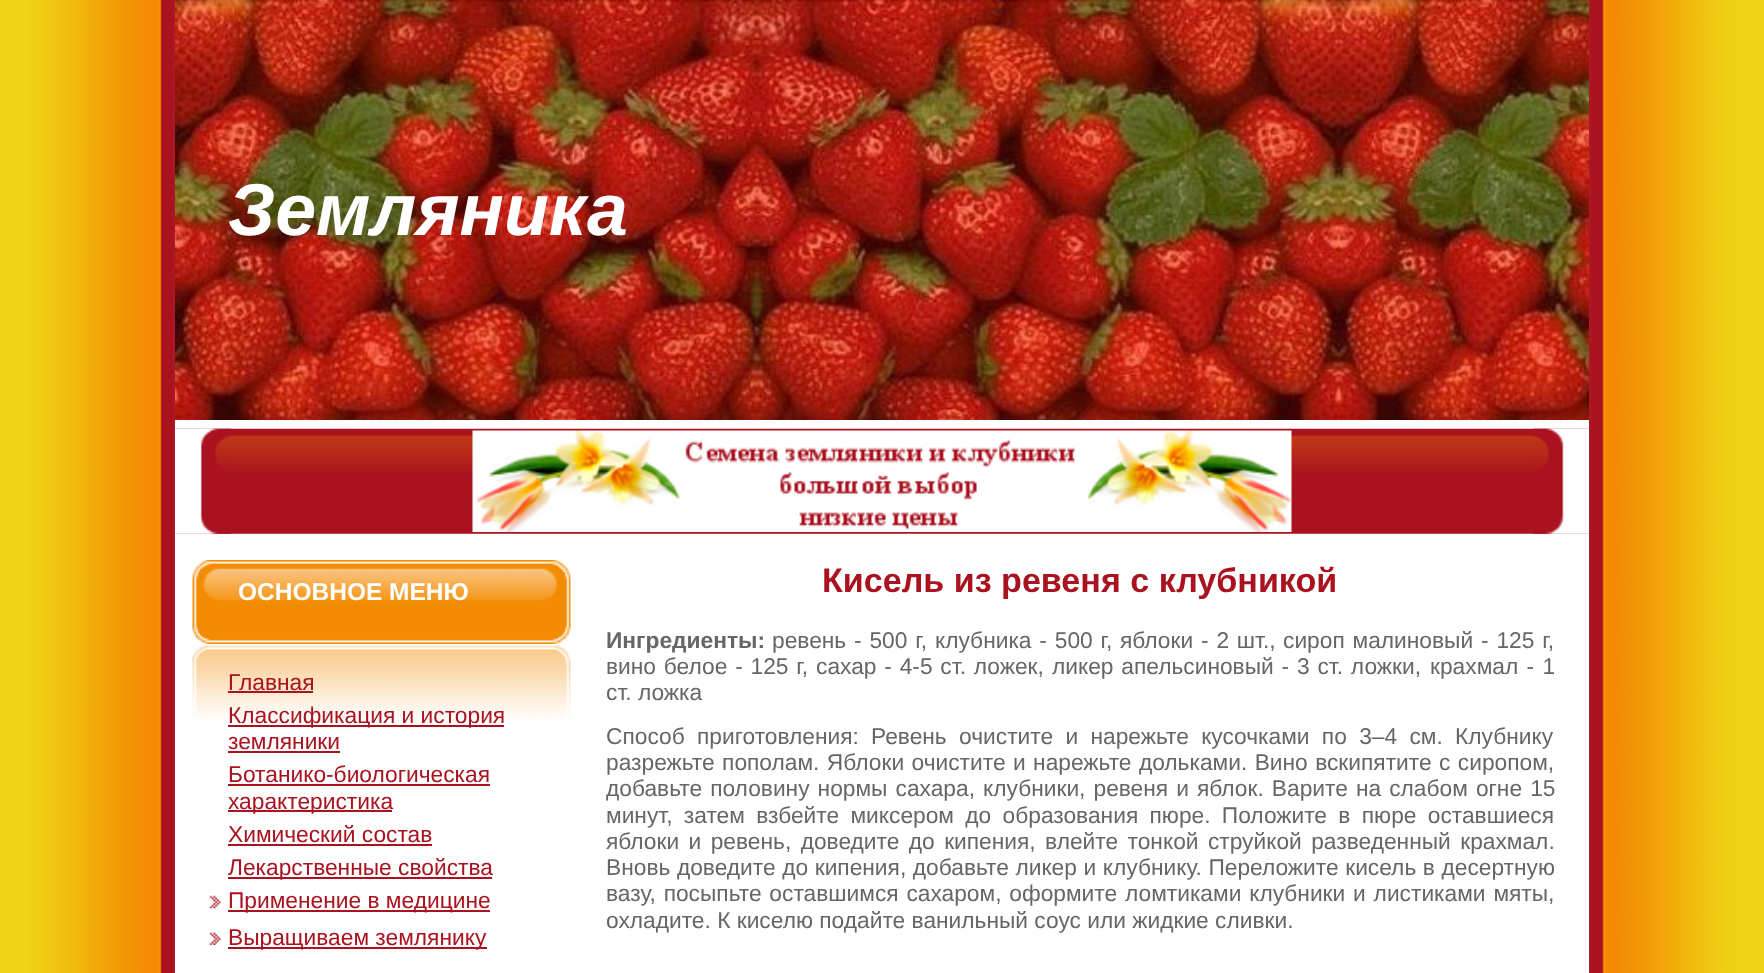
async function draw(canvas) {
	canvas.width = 1764;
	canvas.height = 973;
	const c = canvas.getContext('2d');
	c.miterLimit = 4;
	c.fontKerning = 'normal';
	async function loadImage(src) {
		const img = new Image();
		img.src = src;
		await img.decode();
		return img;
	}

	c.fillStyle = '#fff';
	c.fillRect(0, 0, 1764, 973);
	c.drawImage(await loadImage('img1.png'), 0, 0, 175, 973);
	c.drawImage(await loadImage('img2.png'), 1589, 0, 175, 973);
	c.drawImage(await loadImage('img3.png'), 175, 0, 1414, 420);
	c.font = 'italic bold 73.5px Liberation Sans';
	c.fillText('Земляника', 228, 235);
	c.drawImage(await loadImage('img4.png'), 175, 428, 1414, 106);
	c.drawImage(await loadImage('img5.png'), 175, 428, 56, 106);
	c.drawImage(await loadImage('img6.png'), 1533, 428, 56, 106);
	c.drawImage(await loadImage('img7.png'), 472, 430, 820, 102);
	c.drawImage(await loadImage('img8.png'), 192, 560, 379, 84);
	c.font = 'bold 24.5px Liberation Sans';
	c.fillText('ОСНОВНОЕ МЕНЮ', 238, 600);
	c.drawImage(await loadImage('img9.png'), 192, 645, 379, 76);
	c.font = '22.75px Liberation Sans';
	c.fillStyle = '#aa121f';
	c.fillText('Главная', 228, 690);
	c.fillRect(228, 691, 85, 2);
	c.fillRect(228, 725, 276, 2);
	c.fillText('Классификация и история', 228, 723);
	c.fillText('земляники', 228, 749);
	c.fillRect(228, 751, 112, 2);
	c.fillText('Ботанико-биологическая', 228, 782);
	c.fillRect(228, 784, 262, 2);
	c.fillRect(228, 810, 164, 2);
	c.fillText('характеристика', 228, 809);
	c.fillText('Химический состав', 228, 842);
	c.fillRect(228, 844, 204, 2);
	c.fillRect(228, 877, 264, 2);
	c.fillText('Лекарственные свойства', 228, 875);
	c.drawImage(await loadImage('img10.png'), 209, 895, 12, 14);
	c.fillRect(228, 910, 262, 2);
	c.fillText('Применение в медицине', 228, 908);
	c.drawImage(await loadImage('img11.png'), 209, 932, 12, 13);
	c.fillRect(228, 947, 259, 2);
	c.fillText('Выращиваем землянику', 228, 945);
	c.font = 'bold 34.1px Liberation Sans';
	c.fillText('Кисель из ревеня с клубникой', 822, 592);
	c.font = 'bold 22.75px Liberation Sans';
	c.fillStyle = '#666';
	c.fillText('Ингредиенты:', 606, 648);
	c.wordSpacing = '1.5px';
	c.font = '22.75px Liberation Sans';
	for (const [text, x, y] of [
		['ревень - 500 г,', 772, 648],
		['клубника - 500 г,', 935, 648],
		['яблоки - 2 шт.,', 1120, 648],
		['сироп малиновый - 125 г,', 1283, 648],
		['вино белое - 125 г,', 606, 674],
		['сахар - 4-5 ст. ложек,', 816, 674],
		['ликер апельсиновый - 3 ст. ложки,', 1052, 674],
	]) {
		c.fillText(text, x, y);
	}
	c.wordSpacing = '2px';
	c.fillText('крахмал - 1', 1430, 674);
	c.wordSpacing = '0px';
	c.fillText('ст. ложка', 606, 700);
	c.wordSpacing = '6px';
	c.fillText('Способ приготовления:', 606, 744);
	c.fillText('Ревень очистите и нарежьте кусочками по 3–4 см. Клубнику', 871, 744);
	c.wordSpacing = '1.1px';
	c.fillText('разрежьте пополам. Яблоки очистите и нарежьте дольками. Вино вскипятите с сиропом,', 606, 770);
	c.wordSpacing = '1.75px';
	c.fillText('добавьте половину нормы сахара, клубники, ревеня и яблок. Варите на слабом огне 15', 606, 796);
	c.wordSpacing = '5px';
	c.fillText('минут, затем взбейте миксером до образования пюре. Положите в пюре оставшиеся', 606, 823);
	c.wordSpacing = '3.1px';
	c.fillText('яблоки и ревень, доведите до кипения, влейте тонкой струйкой разведенный крахмал.', 606, 849);
	c.wordSpacing = '0.25px';
	c.fillText('Вновь доведите до кипения, добавьте ликер и клубнику. Переложите кисель в десертную', 606, 875);
	c.wordSpacing = '1.5px';
	c.fillText('вазу, посыпьте оставшимся сахаром, оформите ломтиками клубники и листиками мяты,', 606, 901);
	c.wordSpacing = '0px';
	c.fillText('охладите. К киселю подайте ванильный соус или жидкие сливки.', 606, 928);
}

draw(document.querySelector('canvas'));
